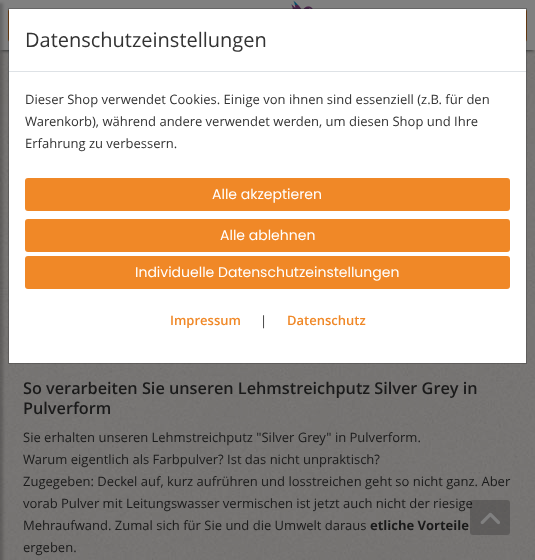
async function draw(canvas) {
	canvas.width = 535;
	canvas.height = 560;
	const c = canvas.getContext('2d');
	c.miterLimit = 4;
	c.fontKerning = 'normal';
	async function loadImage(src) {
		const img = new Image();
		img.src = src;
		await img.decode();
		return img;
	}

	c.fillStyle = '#fff';
	c.fillRect(0, 0, 535, 560);
	c.drawImage(await loadImage('img1.png'), 0, 50, 535, 510);
	c.fillStyle = '#3c3c3c';
	c.filter = 'blur(1.5px)';
	c.beginPath();
	c.rect(2, 5, 531, 46);
	c.fill();
	c.filter = 'none';
	c.fillStyle = '#808080';
	c.fillRect(0, 0, 535, 50);
	c.fillStyle = '#784414';
	c.beginPath();
	c.roundRect(8, 9, 36, 33, 3);
	c.fill();
	c.beginPath();
	c.roundRect(487, 9, 40, 33, 3);
	c.fill();
	c.fillStyle = '#fff';
	c.fillRect(9, 9, 517, 354);
	c.drawImage(await loadImage('img2.png'), 291, 0, 22, 9);
	c.fillStyle = '#00000033';
	c.filter = 'blur(1.5px)';
	c.beginPath();
	c.rect(-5, 3, 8, 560);
	c.fill();
	c.filter = 'none';
	c.strokeStyle = '#00000033';
	c.strokeRect(8.5, 8.5, 518, 355);
	c.fillStyle = '#dee2e6';
	c.fillRect(9, 71, 517, 1);
	c.font = '20px Open Sans';
	c.fillStyle = '#333';
	c.fillText('Datenschutzeinstellungen', 25, 47);
	c.font = '13px Open Sans';
	for (const [text, x, y] of [
		['Dieser Shop verwendet Cookies. Einige von ihnen sind essenziell (z.B. für den', 25, 104],
		['Warenkorb), während andere verwendet werden, um diesen Shop und Ihre', 25, 126],
		['Erfahrung zu verbessern.', 25, 148],
	]) {
		c.fillText(text, x, y);
	}
	c.fillStyle = '#f08827';
	c.beginPath();
	c.roundRect(25, 178, 485, 33, 3);
	c.fill();
	c.font = '14px Poppins';
	c.fillStyle = '#fff';
	c.fillText('Alle akzeptieren', 212, 199);
	c.fillStyle = '#f08827';
	c.beginPath();
	c.roundRect(25, 219, 485, 33, 3);
	c.fill();
	c.fillStyle = '#fff';
	c.fillText('Alle ablehnen', 220, 240);
	c.fillStyle = '#f08827';
	c.beginPath();
	c.roundRect(25, 256, 485, 33, 3);
	c.fill();
	c.fillStyle = '#fff';
	c.fillText('Individuelle Datenschutzeinstellungen', 135, 277);
	c.font = '600 13px Open Sans';
	c.fillStyle = '#f08827';
	c.fillText('Impressum', 170, 325);
	c.font = '13px Open Sans';
	c.fillStyle = '#333';
	c.fillText('|', 260, 325);
	c.font = '600 13px Open Sans';
	c.fillStyle = '#f08827';
	c.fillText('Datenschutz', 287, 325);
	c.font = '600 16.25px Open Sans';
	c.fillStyle = '#1a1a1a';
	c.fillText('So verarbeiten Sie unseren Lehmstreichputz Silver Grey in', 23, 394);
	c.fillText('Pulverform', 23, 414);
	c.font = '13px Open Sans';
	for (const [text, x, y] of [
		['Sie erhalten unseren Lehmstreichputz "Silver Grey" in Pulverform.', 23, 442],
		['Warum eigentlich als Farbpulver? Ist das nicht unpraktisch?', 23, 464],
		['Zugegeben: Deckel auf, kurz aufrühren und losstreichen geht so nicht ganz. Aber', 23, 486],
		['vorab Pulver mit Leitungswasser vermischen ist jetzt auch nicht der riesige', 23, 508],
		['Mehraufwand. Zumal sich für Sie und die Umwelt daraus', 23, 530],
	]) {
		c.fillText(text, x, y);
	}
	c.font = 'bold 13px Open Sans';
	c.fillText('etliche Vorteile', 370, 530);
	c.font = '13px Open Sans';
	c.fillText('ergeben.', 23, 552);
	c.fillStyle = '#00000033';
	c.beginPath();
	c.roundRect(470, 500, 40, 35, 3);
	c.fill();
	c.drawImage(await loadImage('img3.png'), 480, 512, 21, 13);
}

draw(document.querySelector('canvas'));
